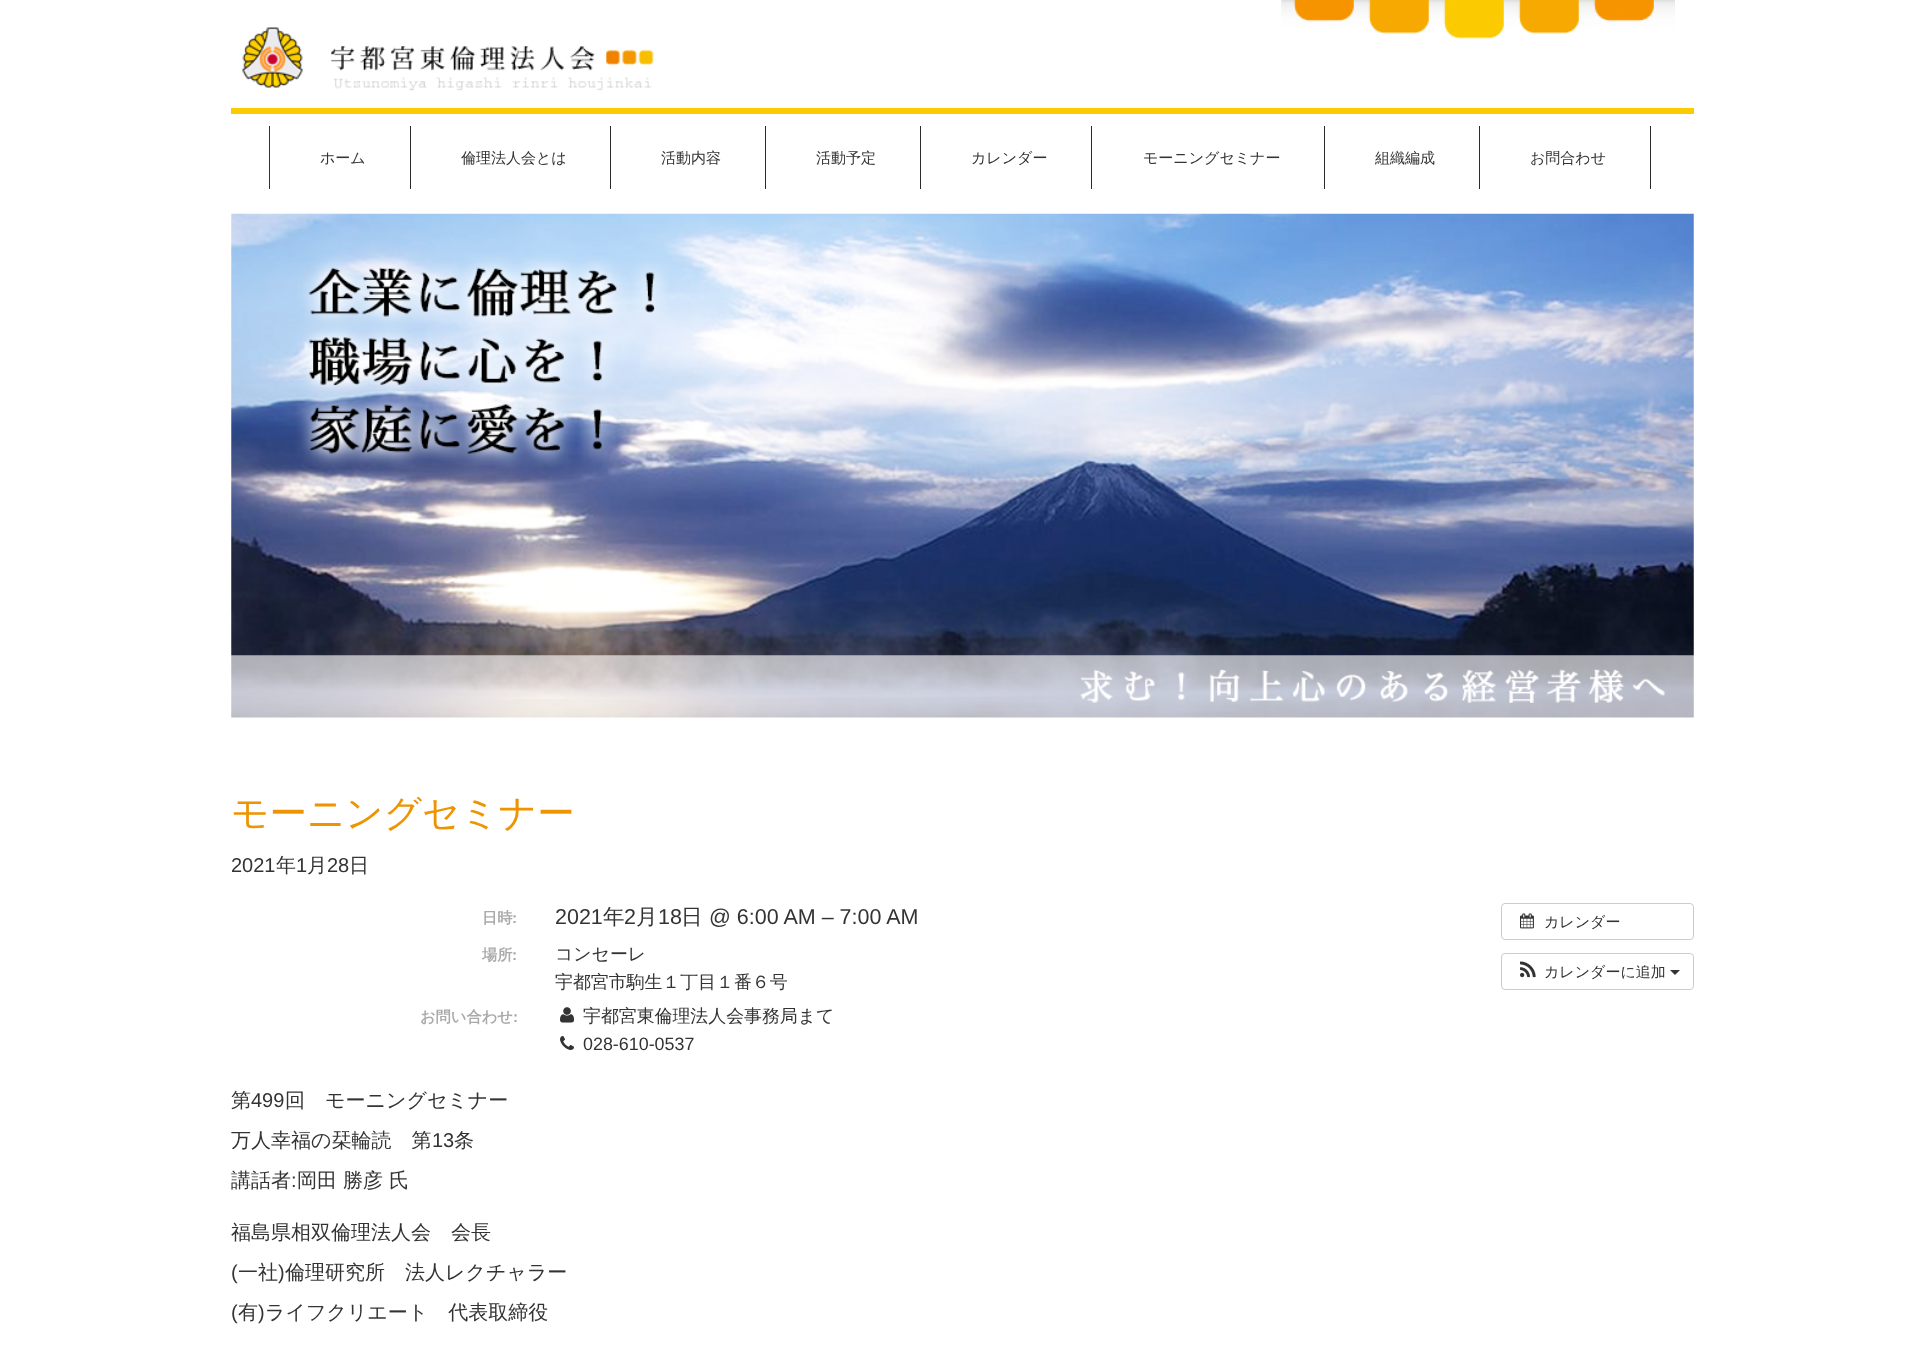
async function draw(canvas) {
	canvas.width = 1925;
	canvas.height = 1366;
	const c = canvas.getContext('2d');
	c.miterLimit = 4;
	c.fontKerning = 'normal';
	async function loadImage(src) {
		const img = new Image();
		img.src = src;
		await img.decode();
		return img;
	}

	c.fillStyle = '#fff';
	c.fillRect(0, 0, 1925, 1366);
	c.drawImage(await loadImage('img1.png'), 1281, 0, 394, 39);
	c.drawImage(await loadImage('img2.png'), 242, 27, 412, 64);
	for (const [x, y, w, h, color] of [
		[231, 108, 1463, 6, '#fccb02'],
		[410, 126, 1, 63, '#2c2c2c'],
		[269, 126, 1, 63, '#333'],
	]) {
		c.fillStyle = color;
		c.fillRect(x, y, w, h);
	}
	c.font = '500 15px WenQuanYi Zen Hei';
	c.fillText('ホーム', 320, 163);
	c.fillStyle = '#2c2c2c';
	c.fillRect(610, 126, 1, 63);
	c.fillStyle = '#333';
	c.fillText('倫理法人会とは', 461, 163);
	c.fillStyle = '#2c2c2c';
	c.fillRect(765, 126, 1, 63);
	c.fillStyle = '#333';
	c.fillText('活動内容', 661, 163);
	c.fillStyle = '#2c2c2c';
	c.fillRect(920, 126, 1, 63);
	c.fillStyle = '#333';
	c.fillText('活動予定', 816, 163);
	c.fillStyle = '#2c2c2c';
	c.fillRect(1091, 126, 1, 63);
	c.fillStyle = '#333';
	c.fillText('カレンダー', 971, 163);
	c.fillStyle = '#2c2c2c';
	c.fillRect(1324, 126, 1, 63);
	c.fillStyle = '#333';
	c.fillText('モーニングセミナー', 1143, 163);
	c.fillStyle = '#2c2c2c';
	c.fillRect(1479, 126, 1, 63);
	c.fillStyle = '#333';
	c.fillText('組織編成', 1375, 163);
	c.fillStyle = '#2c2c2c';
	c.fillRect(1650, 126, 1, 63);
	c.fillStyle = '#333';
	c.fillText('お問合わせ', 1530, 163);
	c.drawImage(await loadImage('img3.png'), 231, 213, 1463, 505);
	c.font = '500 37.5px WenQuanYi Zen Hei';
	c.fillStyle = '#ed9400';
	c.fillText('モーニングセミナー', 231, 826);
	c.font = '20px Liberation Sans';
	c.fillStyle = '#333';
	c.fillText('2021', 231, 872);
	c.font = '500 20px WenQuanYi Zen Hei';
	c.fillText('年', 276, 872);
	c.font = '20px Liberation Sans';
	c.fillText('1', 296, 872);
	c.font = '500 20px WenQuanYi Zen Hei';
	c.fillText('月', 307, 872);
	c.font = '20px Liberation Sans';
	c.fillText('28', 327, 872);
	c.font = '500 20px WenQuanYi Zen Hei';
	c.fillText('日', 349, 872);
	c.font = 'bold 15.25px WenQuanYi Zen Hei';
	c.fillStyle = '#aaa';
	c.fillText('日時', 482, 923);
	c.font = 'bold 15.25px Liberation Sans';
	c.fillText(':', 512, 923);
	c.font = '21.5px Liberation Sans';
	c.fillStyle = '#333';
	c.fillText('2021', 555, 924);
	c.font = '500 21.5px WenQuanYi Zen Hei';
	c.fillText('年', 603, 924);
	c.font = '21.5px Liberation Sans';
	c.fillText('2', 624, 924);
	c.font = '500 21.5px WenQuanYi Zen Hei';
	c.fillText('月', 636, 924);
	c.font = '21.5px Liberation Sans';
	c.fillText('18', 658, 924);
	c.font = '500 21.5px WenQuanYi Zen Hei';
	c.fillText('日', 681, 924);
	c.font = '21.5px Liberation Sans';
	c.fillText('@ 6:00 AM – 7:00 AM', 709, 924);
	c.font = 'bold 15.25px WenQuanYi Zen Hei';
	c.fillStyle = '#aaa';
	c.fillText('場所', 482, 960);
	c.font = 'bold 15.25px Liberation Sans';
	c.fillText(':', 512, 960);
	c.font = '500 17.9px WenQuanYi Zen Hei';
	c.fillStyle = '#333';
	c.fillText('コンセーレ', 555, 960);
	c.fillText('宇都宮市駒生１丁目１番６号', 555, 988);
	c.font = 'bold 15.25px WenQuanYi Zen Hei';
	c.fillStyle = '#aaa';
	c.fillText('お問い合わせ', 420, 1022);
	c.font = 'bold 15.25px Liberation Sans';
	c.fillText(':', 513, 1022);
	c.drawImage(await loadImage('img4.png'), 560, 1007, 15, 16);
	c.font = '500 17.9px WenQuanYi Zen Hei';
	c.fillStyle = '#333';
	c.fillText('宇都宮東倫理法人会事務局まで', 583, 1022);
	c.drawImage(await loadImage('img5.png'), 560, 1036, 14, 14);
	c.font = '17.9px Liberation Sans';
	c.fillText('028-610-0537', 583, 1050);
	c.beginPath();
	c.roundRect(1501.5, 903.5, 192, 36, 3.5);
	c.strokeStyle = '#ccc';
	c.stroke();
	c.drawImage(await loadImage('img6.png'), 1520, 913, 14, 16);
	c.font = '500 15px WenQuanYi Zen Hei';
	c.fillText('カレンダー', 1544, 927);
	c.beginPath();
	c.roundRect(1501.5, 953.5, 192, 36, 3.5);
	c.stroke();
	c.drawImage(await loadImage('img7.png'), 1520, 961, 16, 17);
	c.fillText('カレンダーに追加', 1544, 977);
	c.beginPath();
	c.moveTo(1670, 970);
	c.lineTo(1680, 970);
	c.lineTo(1675, 975);
	c.closePath();
	c.fill();
	c.font = '500 20px WenQuanYi Zen Hei';
	c.fillText('第', 231, 1107);
	c.font = '20px Liberation Sans';
	c.fillText('499', 251, 1107);
	c.font = '500 20px WenQuanYi Zen Hei';
	c.fillText('回　モーニングセミナー', 285, 1107);
	c.fillText('万人幸福の栞輪読　第', 231, 1147);
	c.font = '20px Liberation Sans';
	c.fillText('13', 432, 1147);
	c.font = '500 20px WenQuanYi Zen Hei';
	c.fillText('条', 454, 1147);
	c.fillText('講話者', 231, 1187);
	c.font = '20px Liberation Sans';
	c.fillText(':', 291, 1187);
	c.font = '500 20px WenQuanYi Zen Hei';
	c.fillText('岡田 勝彦 氏', 297, 1187);
	c.fillText('福島県相双倫理法人会　会長', 231, 1239);
	c.font = '20px Liberation Sans';
	c.fillText('(', 231, 1279);
	c.font = '500 20px WenQuanYi Zen Hei';
	c.fillText('一社', 238, 1279);
	c.font = '20px Liberation Sans';
	c.fillText(')', 278, 1279);
	c.font = '500 20px WenQuanYi Zen Hei';
	c.fillText('倫理研究所　法人レクチャラー', 285, 1279);
	c.font = '20px Liberation Sans';
	c.fillText('(', 231, 1319);
	c.font = '500 20px WenQuanYi Zen Hei';
	c.fillText('有', 238, 1319);
	c.font = '20px Liberation Sans';
	c.fillText(')', 258, 1319);
	c.font = '500 20px WenQuanYi Zen Hei';
	c.fillText('ライフクリエート　代表取締役', 265, 1319);
}

draw(document.querySelector('canvas'));
